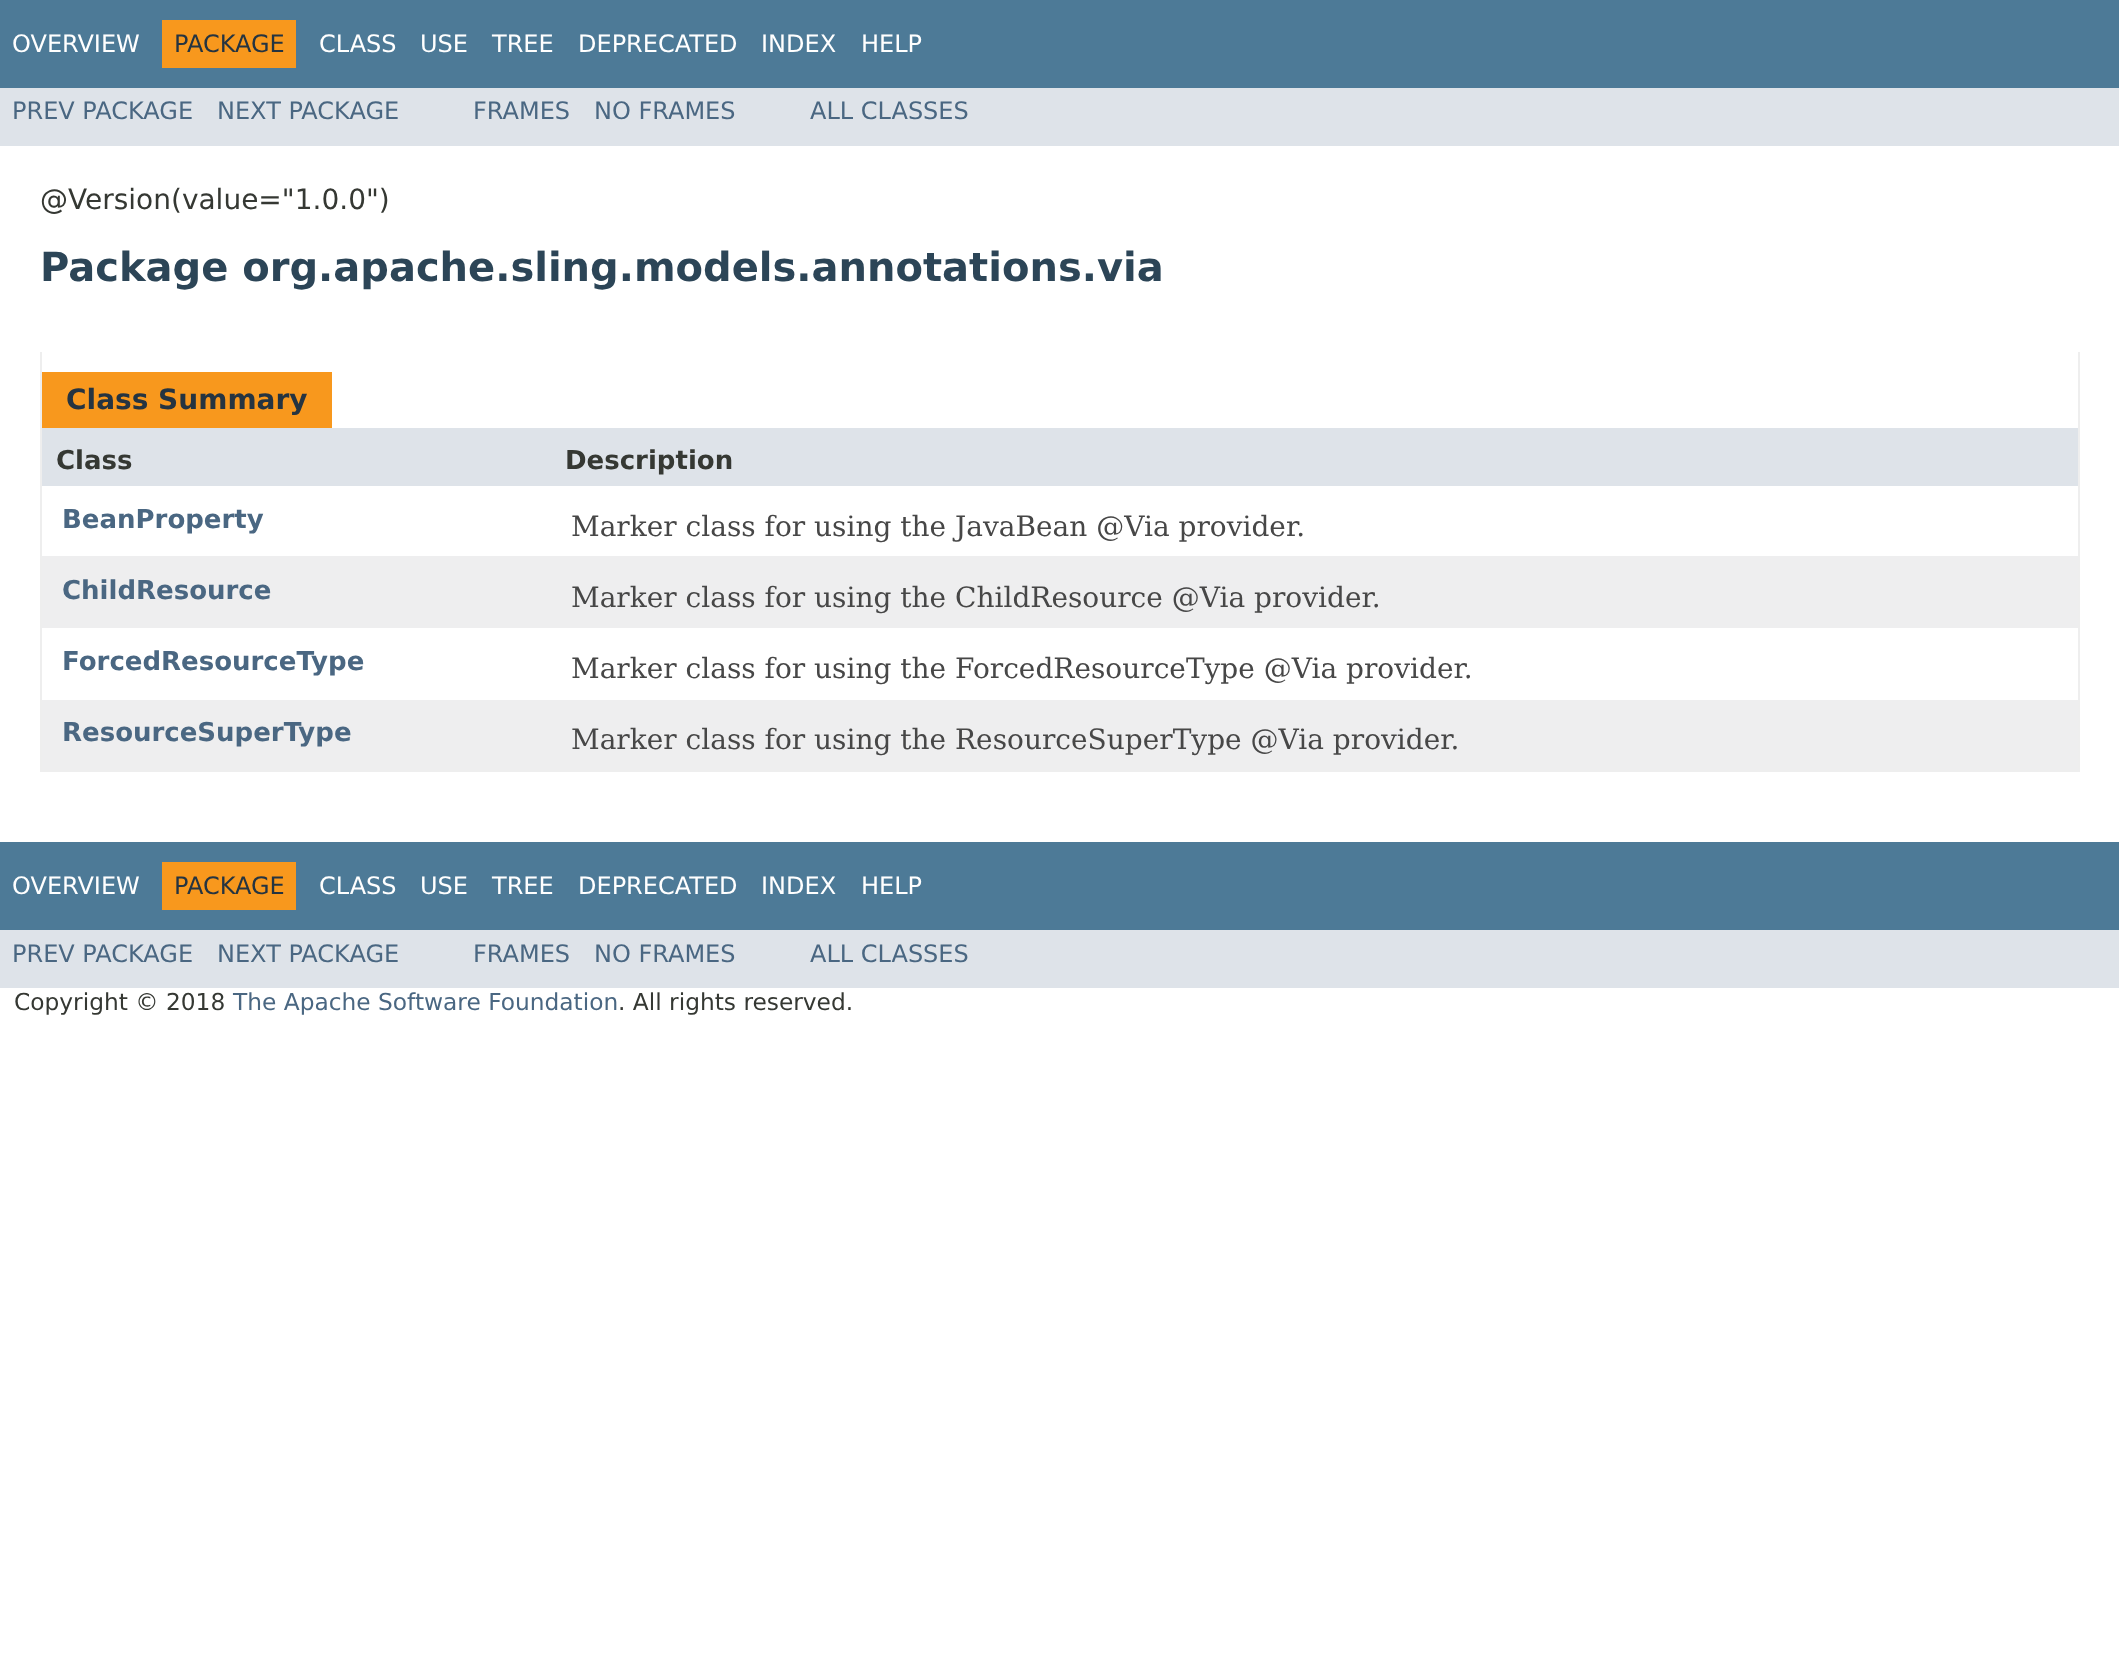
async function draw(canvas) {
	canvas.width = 2119;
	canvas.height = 1663;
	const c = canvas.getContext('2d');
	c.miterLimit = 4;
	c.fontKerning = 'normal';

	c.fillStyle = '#fff';
	c.fillRect(0, 0, 2119, 1663);
	c.fillStyle = '#4d7a97';
	c.fillRect(0, 0, 2119, 88);
	c.font = '24px DejaVu Sans';
	c.fillStyle = '#fff';
	c.fillText('OVERVIEW', 12, 52);
	c.fillStyle = '#f8981d';
	c.fillRect(162, 20, 134, 48);
	c.fillStyle = '#253441';
	c.fillText('PACKAGE', 174, 52);
	c.fillStyle = '#fff';
	for (const [text, x, y] of [
		['CLASS', 319, 52],
		['USE', 420, 52],
		['TREE', 492, 52],
		['DEPRECATED', 578, 52],
		['INDEX', 761, 52],
		['HELP', 861, 52],
	]) {
		c.fillText(text, x, y);
	}
	c.fillStyle = '#dee3e9';
	c.fillRect(0, 88, 2119, 58);
	c.fillStyle = '#4a6782';
	for (const [text, x, y] of [
		['PREV PACKAGE', 12, 119],
		['NEXT PACKAGE', 217, 119],
		['FRAMES', 473, 119],
		['NO FRAMES', 594, 119],
		['ALL CLASSES', 810, 119],
	]) {
		c.fillText(text, x, y);
	}
	c.font = '28px DejaVu Sans';
	c.fillStyle = '#353833';
	c.fillText('@Version(value="1.0.0")', 40, 209);
	c.font = 'bold 40px DejaVu Sans';
	c.fillStyle = '#2c4557';
	c.fillText('Package org.apache.sling.models.annotations.via', 40, 281);
	for (const [x, y, w, h, color] of [
		[2078, 352, 2, 420, '#eee'],
		[40, 770, 2040, 2, '#eee'],
		[40, 352, 2, 420, '#eee'],
		[42, 372, 290, 56, '#f8981d'],
	]) {
		c.fillStyle = color;
		c.fillRect(x, y, w, h);
	}
	c.font = 'bold 28px DejaVu Sans';
	c.fillStyle = '#253441';
	c.fillText('Class Summary', 66, 409);
	c.fillStyle = '#dee3e9';
	c.fillRect(42, 428, 2036, 58);
	c.font = 'bold 26px DejaVu Sans';
	c.fillStyle = '#353833';
	c.fillText('Class', 56, 469);
	c.fillText('Description', 565, 469);
	c.fillStyle = '#4a6782';
	c.fillText('BeanProperty', 62, 528);
	c.font = '28px DejaVu Serif';
	c.fillStyle = '#474747';
	c.fillText('Marker class for using the JavaBean @Via provider.', 571, 536);
	c.fillStyle = '#eeeeef';
	c.fillRect(42, 556, 2036, 72);
	c.font = 'bold 26px DejaVu Sans';
	c.fillStyle = '#4a6782';
	c.fillText('ChildResource', 62, 599);
	c.font = '28px DejaVu Serif';
	c.fillStyle = '#474747';
	c.fillText('Marker class for using the ChildResource @Via provider.', 571, 607);
	c.font = 'bold 26px DejaVu Sans';
	c.fillStyle = '#4a6782';
	c.fillText('ForcedResourceType', 62, 670);
	c.font = '28px DejaVu Serif';
	c.fillStyle = '#474747';
	c.fillText('Marker class for using the ForcedResourceType @Via provider.', 571, 678);
	c.fillStyle = '#eeeeef';
	c.fillRect(42, 700, 2036, 70);
	c.font = 'bold 26px DejaVu Sans';
	c.fillStyle = '#4a6782';
	c.fillText('ResourceSuperType', 62, 741);
	c.font = '28px DejaVu Serif';
	c.fillStyle = '#474747';
	c.fillText('Marker class for using the ResourceSuperType @Via provider.', 571, 749);
	c.fillStyle = '#4d7a97';
	c.fillRect(0, 842, 2119, 88);
	c.font = '24px DejaVu Sans';
	c.fillStyle = '#fff';
	c.fillText('OVERVIEW', 12, 894);
	c.fillStyle = '#f8981d';
	c.fillRect(162, 862, 134, 48);
	c.fillStyle = '#253441';
	c.fillText('PACKAGE', 174, 894);
	c.fillStyle = '#fff';
	for (const [text, x, y] of [
		['CLASS', 319, 894],
		['USE', 420, 894],
		['TREE', 492, 894],
		['DEPRECATED', 578, 894],
		['INDEX', 761, 894],
		['HELP', 861, 894],
	]) {
		c.fillText(text, x, y);
	}
	c.fillStyle = '#dee3e9';
	c.fillRect(0, 930, 2119, 58);
	c.fillStyle = '#4a6782';
	for (const [text, x, y] of [
		['PREV PACKAGE', 12, 962],
		['NEXT PACKAGE', 217, 962],
		['FRAMES', 473, 962],
		['NO FRAMES', 594, 962],
		['ALL CLASSES', 810, 962],
	]) {
		c.fillText(text, x, y);
	}
	c.font = '23.3px DejaVu Sans';
	c.fillStyle = '#353833';
	c.fillText('Copyright © 2018', 14, 1010);
	c.fillStyle = '#4a6782';
	c.fillText('The Apache Software Foundation', 233, 1010);
	c.fillStyle = '#353833';
	c.fillText('. All rights reserved.', 618, 1010);
}

draw(document.querySelector('canvas'));
